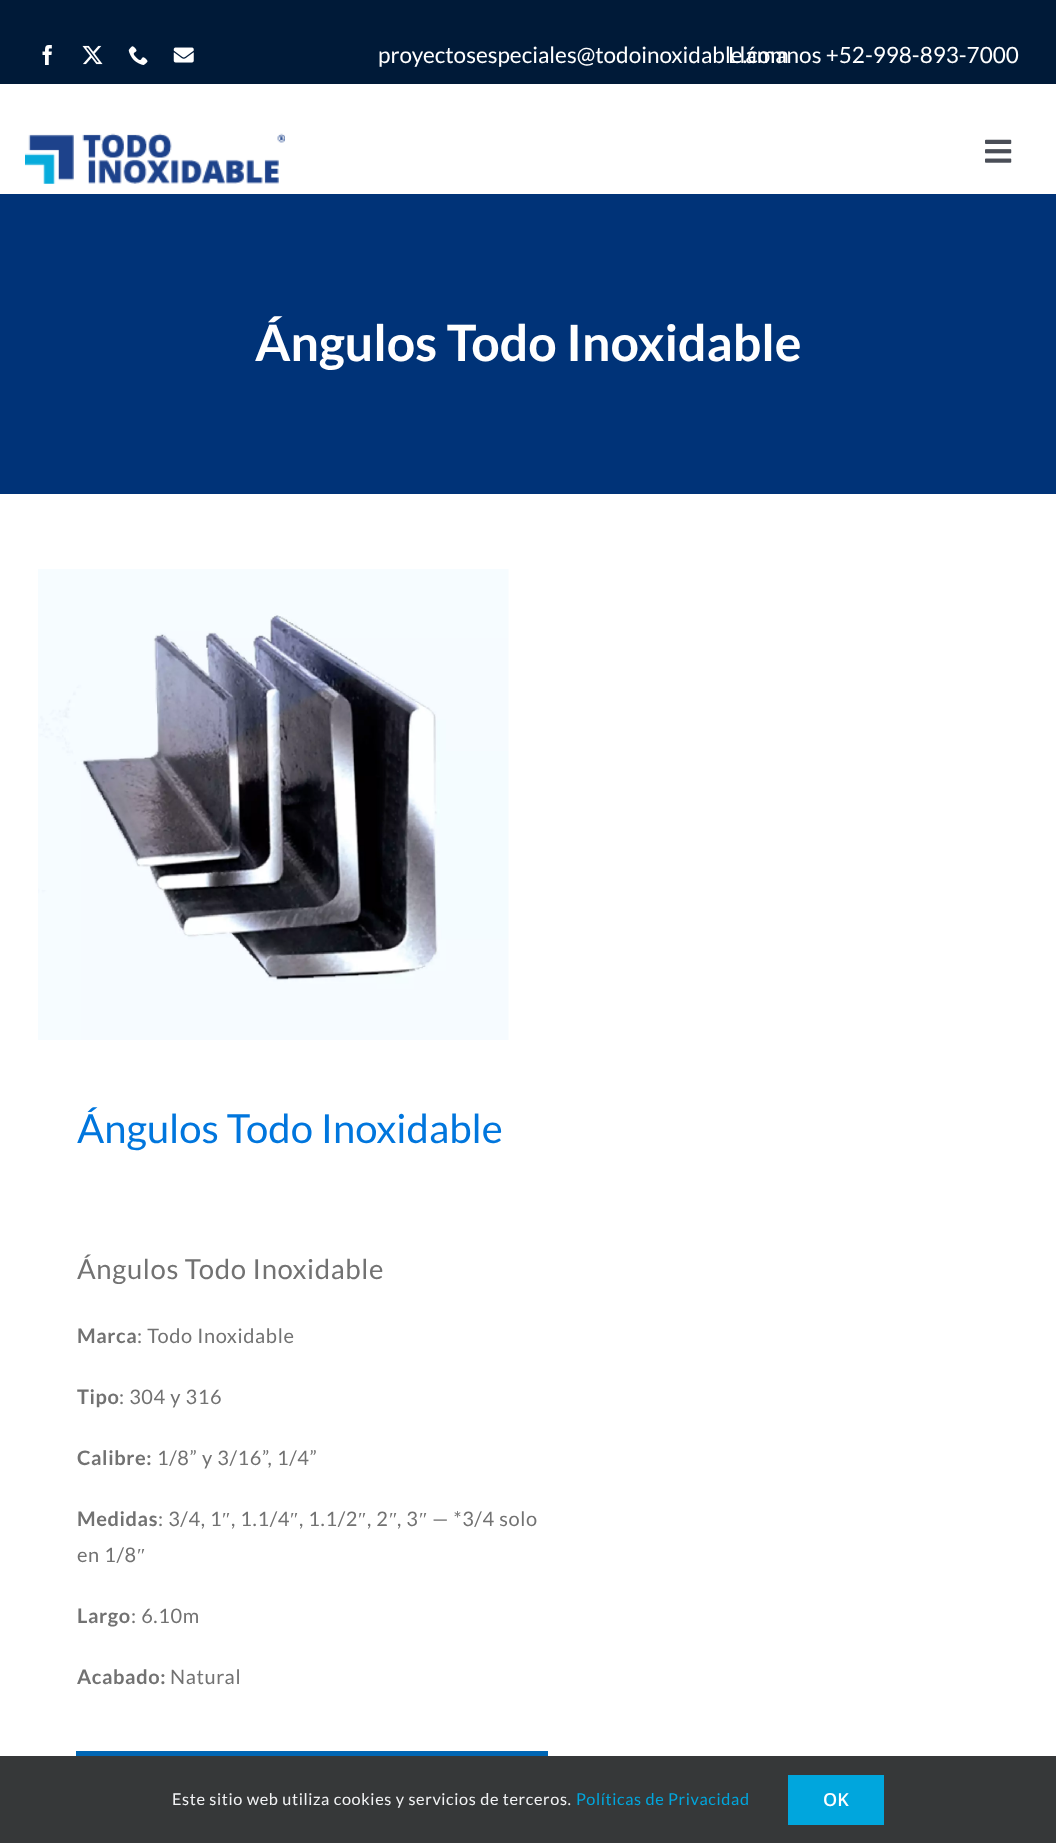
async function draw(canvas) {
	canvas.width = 1056;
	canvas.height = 1843;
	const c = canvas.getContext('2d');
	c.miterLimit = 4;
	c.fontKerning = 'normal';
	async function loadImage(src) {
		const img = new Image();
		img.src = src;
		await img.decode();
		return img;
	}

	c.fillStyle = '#fff';
	c.fillRect(0, 0, 1056, 1843);
	c.fillStyle = '#001a38';
	c.fillRect(0, 0, 1056, 84);
	c.drawImage(await loadImage('img1.png'), 42, 45, 10, 20);
	c.drawImage(await loadImage('img2.png'), 82, 45, 21, 20);
	c.drawImage(await loadImage('img3.png'), 128, 46, 20, 19);
	c.drawImage(await loadImage('img4.png'), 173, 47, 21, 16);
	c.font = '22.5px Lato';
	c.fillStyle = '#fff';
	c.fillText('proyectosespeciales@todoinoxidable.com', 378, 63);
	c.fillText('Llámanos +52-998-893-7000', 728, 63);
	c.drawImage(await loadImage('img5.png'), 25, 133, 260, 51);
	c.drawImage(await loadImage('img6.png'), 985, 139, 27, 24);
	c.fillStyle = '#003378';
	c.fillRect(0, 194, 1056, 300);
	c.font = 'bold 50px Lato';
	c.fillStyle = '#fff';
	c.fillText('Ángulos Todo Inoxidable', 255, 361);
	c.drawImage(await loadImage('img7.png'), 38, 569, 471, 471);
	c.font = '40px Lato';
	c.fillStyle = '#0076dd';
	c.fillText('Ángulos Todo Inoxidable', 77, 1143);
	c.letterSpacing = '0.62px';
	c.font = '27.5px Lato';
	c.fillStyle = '#727272';
	c.fillText('Ángulos Todo Inoxidable', 77, 1279);
	c.font = 'bold 20px Lato';
	c.fillText('Marca', 77, 1343);
	c.font = '20px Lato';
	c.fillText(': Todo Inoxidable', 137, 1343);
	c.font = 'bold 20px Lato';
	c.fillText('Tipo', 77, 1404);
	c.font = '20px Lato';
	c.fillText(': 304 y 316', 119, 1404);
	c.font = 'bold 20px Lato';
	c.fillText('Calibre:', 77, 1465);
	c.font = '20px Lato';
	c.fillText('1/8” y 3/16”, 1/4”', 157, 1465);
	c.font = 'bold 20px Lato';
	c.fillText('Medidas', 77, 1526);
	c.font = '20px Lato';
	c.fillText(': 3/4, 1', 158, 1526);
	c.font = '20px Liberation Serif';
	c.fillText('″', 222, 1526);
	c.font = '20px Lato';
	c.fillText(', 1.1/4', 231, 1526);
	c.font = '20px Liberation Serif';
	c.fillText('″', 290, 1526);
	c.font = '20px Lato';
	c.fillText(', 1.1/2', 299, 1526);
	c.font = '20px Liberation Serif';
	c.fillText('″', 358, 1526);
	c.font = '20px Lato';
	c.fillText(', 2', 367, 1526);
	c.font = '20px Liberation Serif';
	c.fillText('″', 389, 1526);
	c.font = '20px Lato';
	c.fillText(', 3', 397, 1526);
	c.font = '20px Liberation Serif';
	c.fillText('″', 419, 1526);
	c.font = '20px Lato';
	c.fillText('— *3/4 solo', 432, 1526);
	c.fillText('en 1/8', 77, 1562);
	c.font = '20px Liberation Serif';
	c.fillText('″', 137, 1562);
	c.font = 'bold 20px Lato';
	c.fillText('Largo', 77, 1623);
	c.font = '20px Lato';
	c.fillText(': 6.10m', 131, 1623);
	c.font = 'bold 20px Lato';
	c.fillText('Acabado:', 77, 1684);
	c.font = '20px Lato';
	c.fillText('Natural', 170, 1684);
	c.fillStyle = '#0066b4';
	c.fillRect(76, 1751, 472, 5);
	c.fillStyle = '#363839';
	c.fillRect(0, 1756, 1056, 87);
	c.font = '16.25px Lato';
	c.fillStyle = '#f2f3f5';
	c.fillText('Este sitio web utiliza cookies y servicios de terceros.', 172, 1805);
	c.fillStyle = '#00a6dd';
	c.fillText('Políticas de Privacidad', 576, 1805);
	c.fillRect(788, 1775, 96, 50);
	c.letterSpacing = '0px';
	c.font = '600 18px Open Sans';
	c.fillStyle = '#fff';
	c.fillText('OK', 823, 1806);
}

draw(document.querySelector('canvas'));
